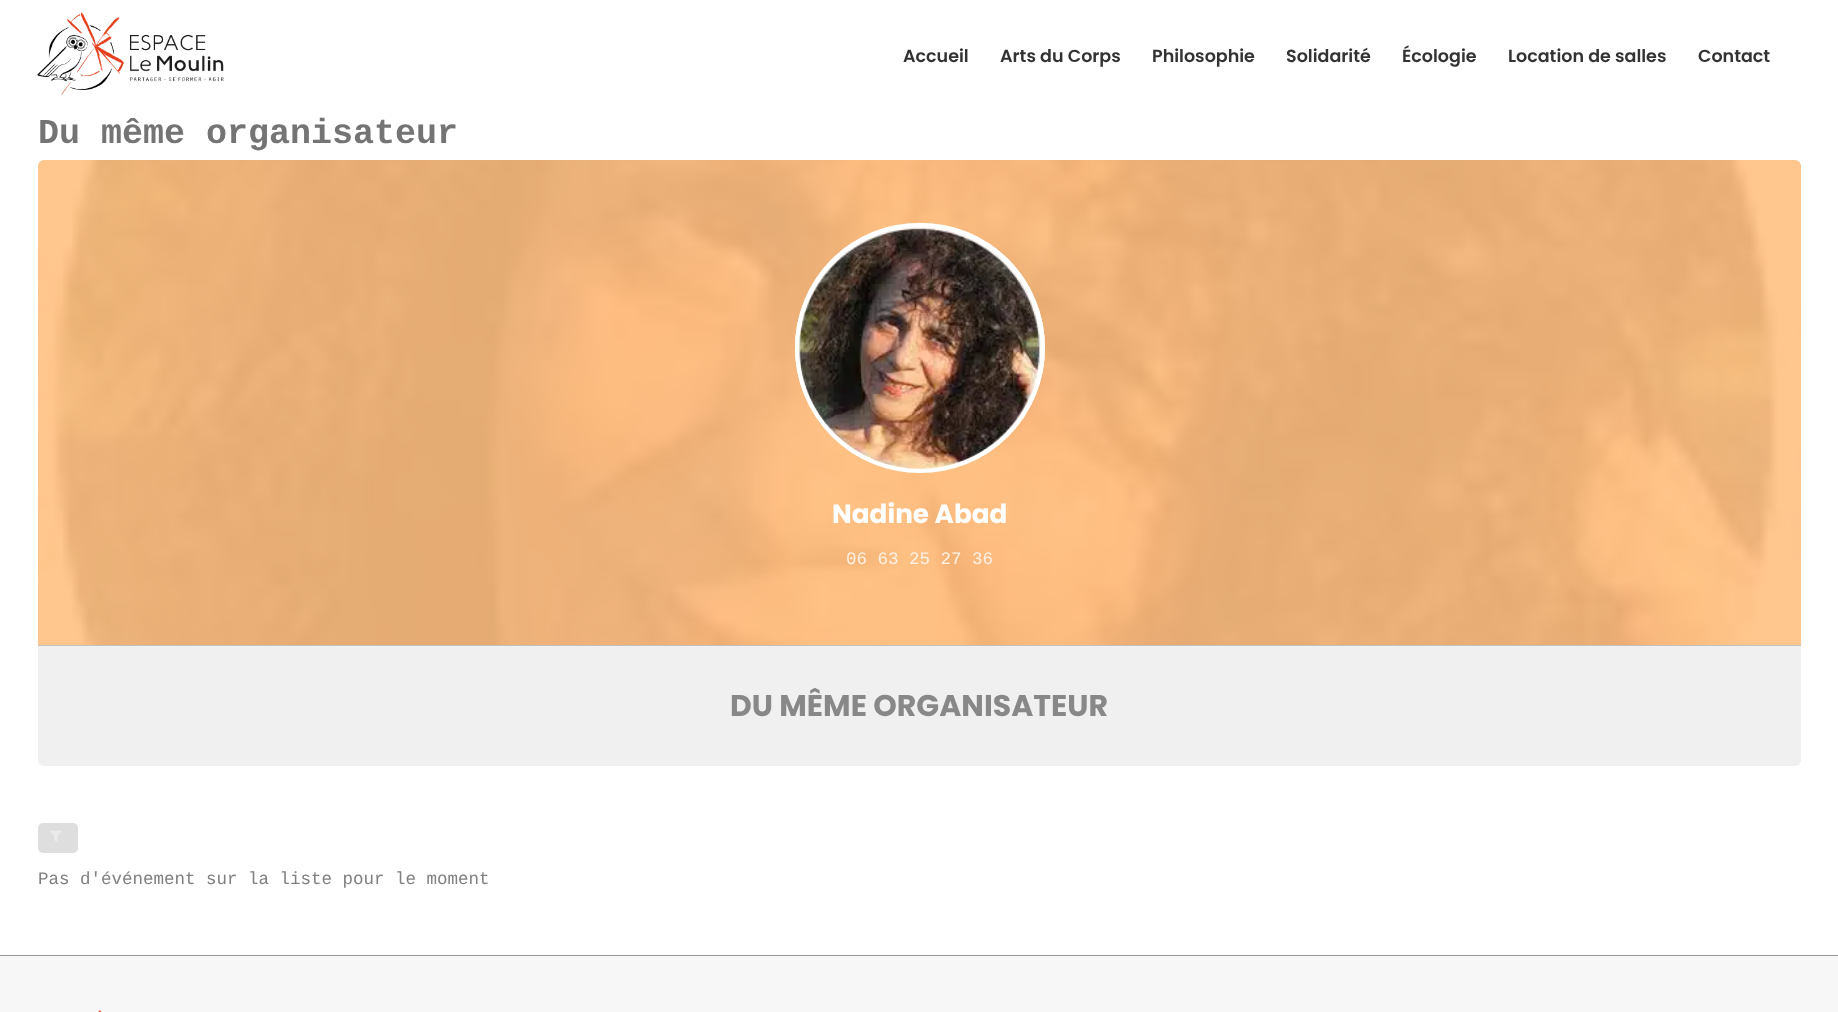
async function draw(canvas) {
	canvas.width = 1838;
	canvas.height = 1012;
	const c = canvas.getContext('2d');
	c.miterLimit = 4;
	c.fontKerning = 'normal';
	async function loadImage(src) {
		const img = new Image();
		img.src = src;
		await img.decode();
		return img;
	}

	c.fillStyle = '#fff';
	c.fillRect(0, 0, 1838, 1012);
	c.drawImage(await loadImage('img1.png'), 37, 12, 187, 83);
	c.font = '600 17.5px Poppins';
	c.fillStyle = '#333';
	for (const [text, x, y] of [
		['Accueil', 903, 62],
		['Arts du Corps', 1000, 62],
		['Philosophie', 1152, 62],
		['Solidarité', 1286, 62],
		['Écologie', 1402, 62],
		['Location de salles', 1508, 62],
		['Contact', 1698, 62],
	]) {
		c.fillText(text, x, y);
	}
	c.font = 'bold 35px Liberation Mono';
	c.fillStyle = '#747474';
	c.fillText('Du même organisateur', 38, 143);
	c.drawImage(await loadImage('img2.png'), 37, 160, 1764, 485);
	c.fillStyle = '#ffbf80e3';
	c.beginPath();
	c.roundRect(38, 160, 1763, 485, [6, 6, 0, 0]);
	c.fill();
	c.drawImage(await loadImage('img3.png'), 795, 222, 250, 251);
	c.beginPath();
	c.arc(920, 348, 123, 0, 2 * Math.PI);
	c.strokeStyle = '#fff';
	c.lineWidth = 4;
	c.stroke();
	c.font = 'bold 26.25px Poppins';
	c.fillStyle = '#fff';
	c.fillText('Nadine Abad', 832, 523);
	c.font = '17.5px Liberation Mono';
	c.fillStyle = '#fef1e5';
	c.fillText('06 63 25 27 36', 846, 564);
	c.fillStyle = '#f0f0f0';
	c.beginPath();
	c.roundRect(38, 645, 1763, 121, [0, 0, 6, 6]);
	c.fill();
	c.fillStyle = '#c1c1c1';
	c.fillRect(38, 645, 1763, 1);
	c.font = 'bold 30px Poppins';
	c.fillStyle = '#888';
	c.fillText('DU MÊME ORGANISATEUR', 730, 716);
	c.fillStyle = '#dedede';
	c.beginPath();
	c.roundRect(38, 823, 40, 30, 5);
	c.fill();
	c.drawImage(await loadImage('img4.png'), 50, 830, 12, 12);
	c.font = '17.5px Liberation Mono';
	c.fillStyle = '#808080';
	c.fillText('Pas d\'événement sur la liste pour le moment', 38, 884);
	c.fillStyle = '#f7f7f7';
	c.fillRect(0, 956, 1838, 56);
	c.fillStyle = '#979797';
	c.fillRect(0, 955, 1838, 1);
	c.drawImage(await loadImage('img5.png'), 98, 1010, 4, 2);
}

draw(document.querySelector('canvas'));
